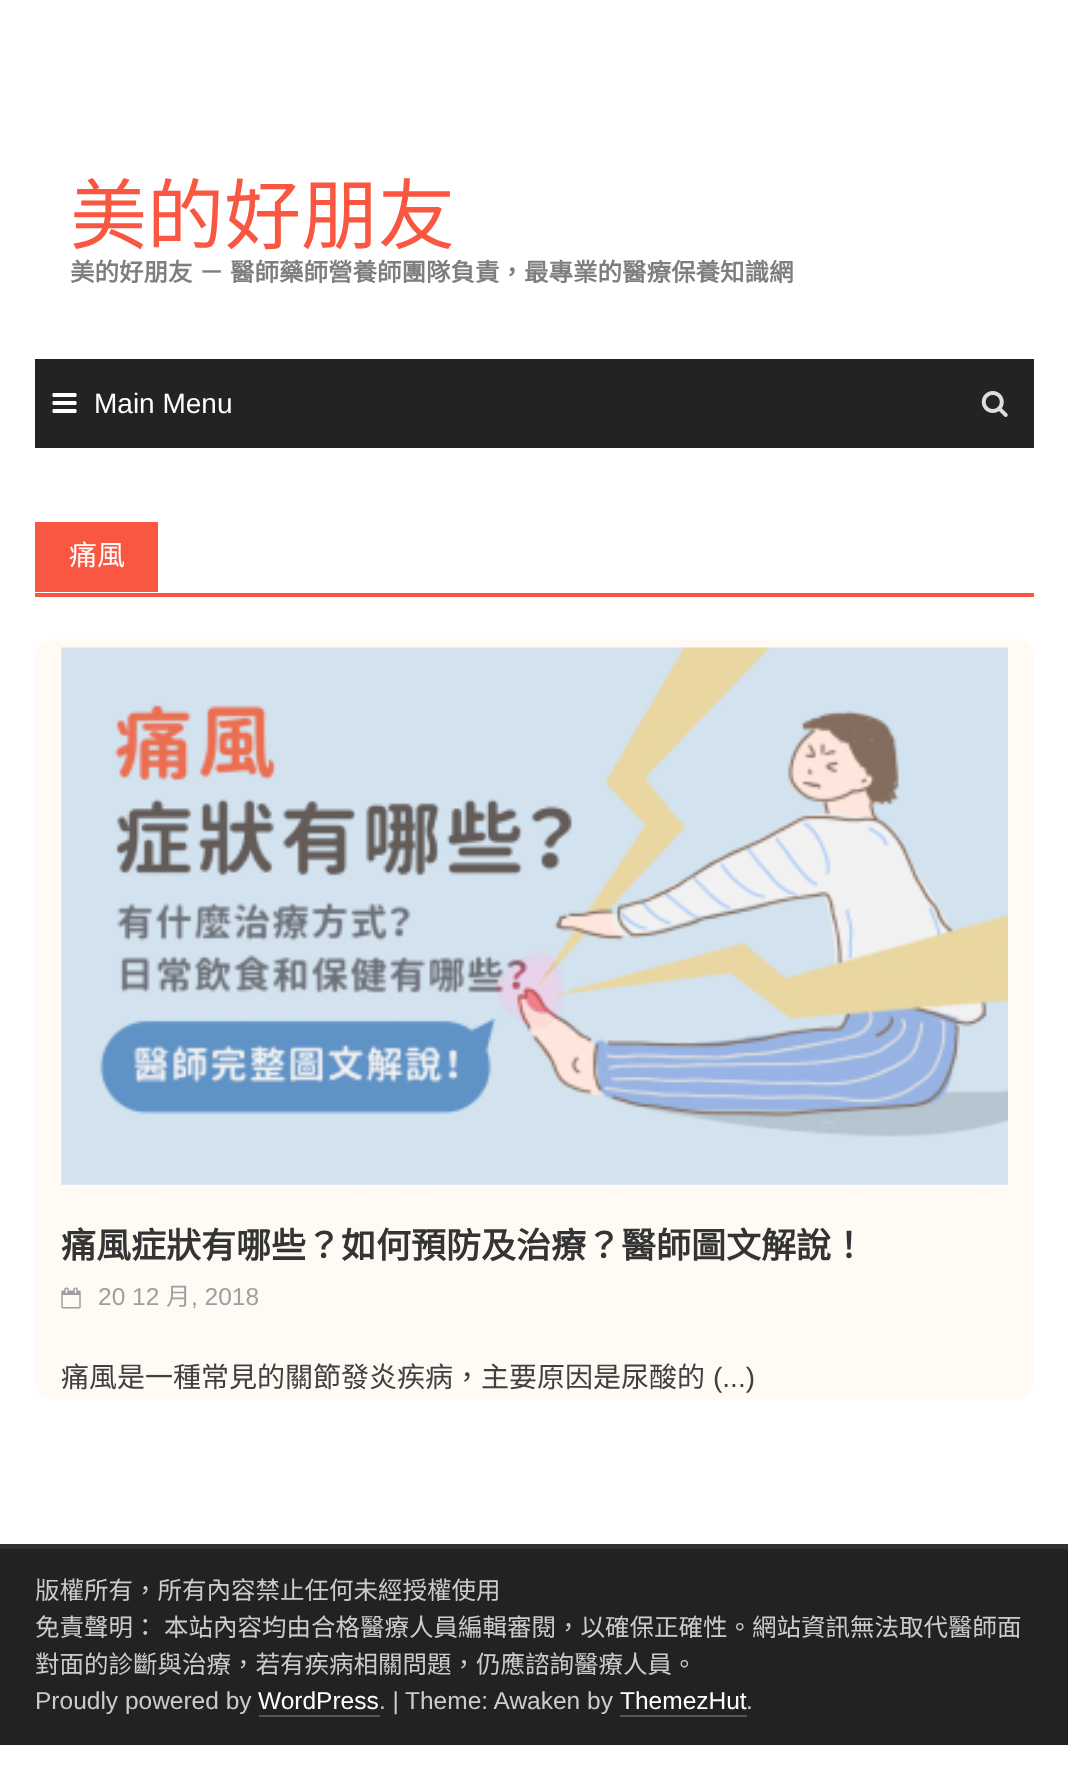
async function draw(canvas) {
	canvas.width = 1068;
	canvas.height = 1786;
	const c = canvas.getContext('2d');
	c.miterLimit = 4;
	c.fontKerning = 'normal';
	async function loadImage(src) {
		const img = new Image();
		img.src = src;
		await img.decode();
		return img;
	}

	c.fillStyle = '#fff';
	c.fillRect(0, 0, 1068, 1786);
	c.font = '77px Noto Sans CJK TC';
	c.fillStyle = '#fa5742';
	c.fillText('美的好朋友', 70, 243);
	c.wordSpacing = '1px';
	c.font = 'bold 24.5px Noto Sans CJK TC';
	c.fillStyle = '#7e7e7e';
	c.fillText('美的好朋友 － 醫師藥師營養師團隊負責，最專業的醫療保養知識網', 70, 281);
	c.fillStyle = '#232323';
	c.fillRect(35, 359, 999, 89);
	c.drawImage(await loadImage('img1.png'), 52, 393, 25, 20);
	c.wordSpacing = '0px';
	c.font = '28px Liberation Sans';
	c.fillStyle = '#fff';
	c.fillText('Main Menu', 94, 413);
	c.drawImage(await loadImage('img2.png'), 981, 391, 27, 26);
	c.fillStyle = '#fa5742';
	c.fillRect(35, 593, 999, 4);
	c.fillRect(35, 522, 123, 70);
	c.font = '28px Noto Sans CJK TC';
	c.fillStyle = '#fff';
	c.fillText('痛風', 69, 565);
	c.fillStyle = '#fffaf4';
	c.beginPath();
	c.roundRect(35, 639, 999, 761, 18);
	c.fill();
	c.drawImage(await loadImage('img3.png'), 61, 647, 947, 538);
	c.font = 'bold 35px Noto Sans CJK TC';
	c.fillStyle = '#353434';
	c.fillText('痛風症狀有哪些？如何預防及治療？醫師圖文解說！', 61, 1258);
	c.drawImage(await loadImage('img4.png'), 61, 1287, 20, 22);
	c.font = '24.5px Liberation Sans';
	c.fillStyle = '#9f9f9f';
	c.fillText('20 12', 98, 1305);
	c.font = '24.5px Noto Sans CJK TC';
	c.fillText('月', 166, 1305);
	c.font = '24.5px Liberation Sans';
	c.fillText(', 2018', 191, 1305);
	c.font = '28px Noto Sans CJK TC';
	c.fillStyle = '#404040';
	c.fillText('痛風是一種常見的關節發炎疾病，主要原因是尿酸的', 61, 1387);
	c.font = '28px Liberation Sans';
	c.fillText('(...)', 713, 1387);
	c.fillStyle = '#323232';
	c.fillRect(0, 1544, 1068, 5);
	c.fillStyle = '#222';
	c.fillRect(0, 1549, 1068, 196);
	c.font = '24.5px Noto Sans CJK TC';
	c.fillStyle = '#ccc';
	c.fillText('版權所有，所有內容禁止任何未經授權使用', 35, 1599);
	c.wordSpacing = '1px';
	c.fillText('免責聲明： 本站內容均由合格醫療人員編輯審閱，以確保正確性。網站資訊無法取代醫師面', 35, 1636);
	c.wordSpacing = '0px';
	c.fillText('對面的診斷與治療，若有疾病相關問題，仍應諮詢醫療人員。', 35, 1673);
	c.font = '24.5px Liberation Sans';
	c.fillText('Proudly powered by', 35, 1709);
	c.fillStyle = '#fff';
	c.fillText('WordPress', 258, 1709);
	c.fillStyle = '#555';
	c.fillRect(259, 1715, 121, 2);
	c.fillStyle = '#ccc';
	c.fillText('. |', 379, 1709);
	c.fillText('Theme: Awaken by', 405, 1709);
	c.fillStyle = '#fff';
	c.fillText('ThemezHut', 620, 1709);
	c.fillStyle = '#555';
	c.fillRect(620, 1715, 127, 2);
	c.fillStyle = '#ccc';
	c.fillText('.', 746, 1709);
}

draw(document.querySelector('canvas'));
